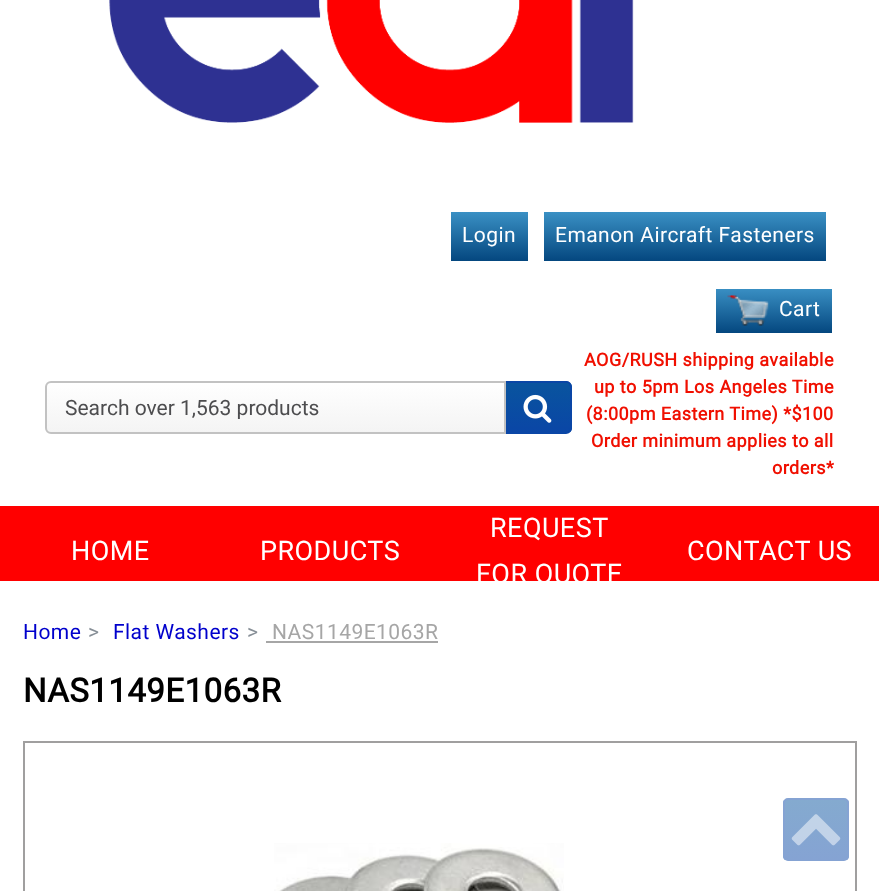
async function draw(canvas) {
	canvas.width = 879;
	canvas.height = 891;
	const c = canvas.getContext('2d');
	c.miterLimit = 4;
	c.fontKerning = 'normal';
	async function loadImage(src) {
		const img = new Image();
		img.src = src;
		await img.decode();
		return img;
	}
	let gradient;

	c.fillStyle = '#fff';
	c.fillRect(0, 0, 879, 891);
	c.drawImage(await loadImage('img1.png'), 109, 0, 525, 123);
	gradient = c.createLinearGradient(489, 212, 489, 261);
	gradient.addColorStop(0, '#3a90c4');
	gradient.addColorStop(1, '#04477f');
	c.fillStyle = gradient;
	c.fillRect(451, 212, 77, 49);
	c.letterSpacing = '0.45px';
	c.font = '21px Roboto';
	c.fillStyle = '#fff';
	c.fillText('Login', 462, 242);
	gradient = c.createLinearGradient(685, 212, 685, 261);
	gradient.addColorStop(0, '#3a90c4');
	gradient.addColorStop(1, '#04477f');
	c.fillStyle = gradient;
	c.fillRect(544, 212, 282, 49);
	c.fillStyle = '#fff';
	c.fillText('Emanon Aircraft Fasteners', 555, 242);
	gradient = c.createLinearGradient(774, 288, 774, 333);
	gradient.addColorStop(0, '#3a90c4');
	gradient.addColorStop(1, '#04477f');
	c.fillStyle = gradient;
	c.fillRect(716, 289, 116, 44);
	c.drawImage(await loadImage('img2.png'), 727, 295, 42, 31);
	c.fillStyle = '#fff';
	c.fillText('Cart', 779, 316);
	c.save();
	c.beginPath();
	c.roundRect(45, 381, 461, 53, [6, 0, 0, 6]);
	c.clip();
	gradient = c.createLinearGradient(275, 382, 275, 432);
	gradient.addColorStop(0, '#fff');
	gradient.addColorStop(1, '#f4f4f4');
	c.fillStyle = gradient;
	c.fillRect(45, 383, 459, 49);
	c.restore();
	c.beginPath();
	c.roundRect(46, 382, 459, 51, [5, 0, 0, 5]);
	c.strokeStyle = '#c2c2c2';
	c.lineWidth = 2;
	c.stroke();
	c.save();
	c.beginPath();
	c.rect(65, 395, 421, 24);
	c.clip();
	c.letterSpacing = '0px';
	c.fillStyle = '#4d4d4f';
	c.fillText('Search over 1,563 products', 65, 415);
	c.restore();
	c.save();
	c.beginPath();
	c.roundRect(506, 381, 66, 53, [0, 6, 6, 0]);
	c.clip();
	gradient = c.createLinearGradient(538, 333, 538, 383);
	gradient.addColorStop(0, '#09549e');
	gradient.addColorStop(1, '#0a46a6');
	c.fillStyle = gradient;
	c.fillRect(506, 381, 66, 2);
	gradient = c.createLinearGradient(538, 383, 538, 432);
	gradient.addColorStop(0, '#09549e');
	gradient.addColorStop(1, '#0a46a6');
	c.fillStyle = gradient;
	c.fillRect(506, 383, 66, 49);
	c.restore();
	c.fillStyle = '#0a46a6';
	c.beginPath();
	c.moveTo(506, 381);
	c.lineTo(566, 381);
	c.bezierCurveTo(569, 381, 572, 384, 572, 387);
	c.lineTo(572, 428);
	c.bezierCurveTo(572, 431, 569, 434, 566, 434);
	c.lineTo(506, 434);
	c.closePath();
	c.moveTo(506, 382);
	c.lineTo(566, 382);
	c.bezierCurveTo(568, 382, 570, 385, 570, 387);
	c.lineTo(570, 428);
	c.bezierCurveTo(570, 430, 568, 432, 566, 432);
	c.lineTo(506, 432);
	c.closePath();
	c.fill('evenodd');
	c.drawImage(await loadImage('img3.png'), 523, 394, 29, 29);
	c.font = 'bold 18px Roboto';
	c.fillStyle = '#f00f00';
	for (const [text, x, y] of [
		['AOG/RUSH shipping available', 584, 366],
		['up to 5pm Los Angeles Time', 594, 393],
		['(8:00pm Eastern Time) *$100', 586, 420],
		['Order minimum applies to all', 591, 447],
		['orders*', 772, 474],
	]) {
		c.fillText(text, x, y);
	}
	c.fillStyle = '#f00';
	c.fillRect(0, 506, 879, 75);
	c.font = '27px Roboto';
	c.fillStyle = '#fff';
	for (const [text, x, y] of [
		['HOME', 71, 560],
		['PRODUCTS', 260, 560],
		['REQUEST', 490, 537],
	]) {
		c.fillText(text, x, y);
	}
	c.save();
	c.beginPath();
	c.rect(0, 506, 879, 75);
	c.clip();
	c.fillText('FOR QUOTE', 476, 583);
	c.restore();
	c.fillText('CONTACT US', 687, 560);
	c.font = '21px Roboto';
	c.fillStyle = '#00c';
	c.fillText('Home', 23, 639);
	c.fillStyle = '#868e96';
	c.fillText('>', 88, 639);
	c.fillStyle = '#00c';
	c.fillText('Flat Washers', 113, 639);
	c.fillStyle = '#868e96';
	c.fillText('>', 247, 639);
	c.fillStyle = '#a6a6a6';
	c.fillText('NAS1149E1063R', 272, 639);
	c.fillRect(266, 641, 172, 2);
	c.font = 'bold 33px Roboto';
	c.fillStyle = '#000';
	c.fillText('NAS1149E1063R', 23, 702);
	c.strokeStyle = '#a09f9f';
	c.strokeRect(24, 742, 832, 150);
	c.drawImage(await loadImage('img4.png'), 274, 843, 290, 48);
	c.save();
	c.beginPath();
	c.roundRect(783, 798, 66, 63, 5);
	c.clip();
	gradient = c.createLinearGradient(816, 800, 816, 860);
	gradient.addColorStop(0, '#84aacf');
	gradient.addColorStop(1, '#85a3d3');
	c.fillStyle = gradient;
	c.fillRect(783, 800, 66, 60);
	c.restore();
	c.beginPath();
	c.roundRect(784, 799, 64, 61, 4);
	c.strokeStyle = '#85a3d3';
	c.stroke();
	c.drawImage(await loadImage('img5.png'), 791, 814, 50, 32);
}

draw(document.querySelector('canvas'));
